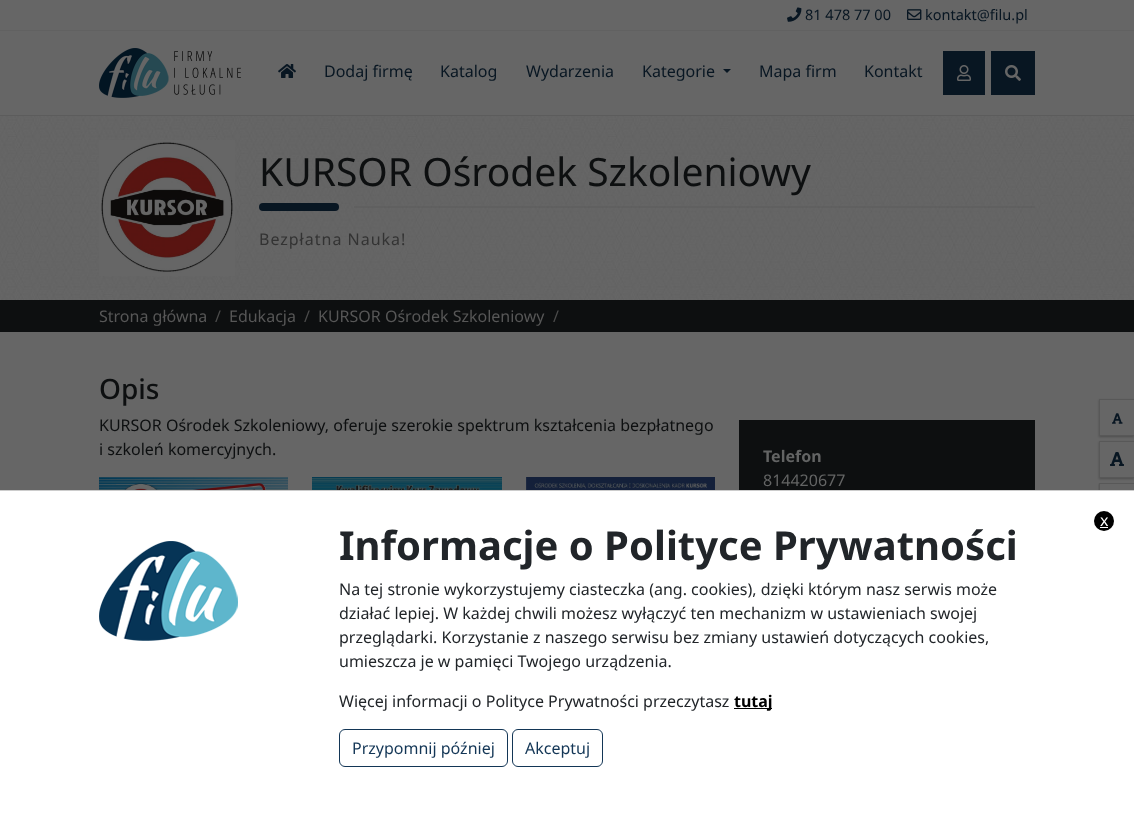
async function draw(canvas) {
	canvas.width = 1134;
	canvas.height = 817;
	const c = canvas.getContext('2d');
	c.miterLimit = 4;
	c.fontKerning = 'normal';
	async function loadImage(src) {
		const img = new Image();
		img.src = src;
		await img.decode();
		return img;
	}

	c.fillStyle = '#666';
	c.fillRect(0, 0, 1134, 817);
	c.fillStyle = '#616161';
	c.fillRect(0, 30, 1134, 1);
	c.drawImage(await loadImage('img1.png'), 787, 7, 15, 15);
	c.font = '14.5px Noto Sans';
	c.fillStyle = '#081622';
	c.fillText('81 478 77 00', 805, 20);
	c.drawImage(await loadImage('img2.png'), 907, 9, 15, 11);
	c.fillText('kontakt@filu.pl', 925, 20);
	c.fillStyle = '#5c5c5c';
	c.fillRect(0, 115, 1134, 1);
	c.drawImage(await loadImage('img3.png'), 99, 48, 142, 50);
	c.drawImage(await loadImage('img4.png'), 278, 64, 18, 14);
	c.font = '16px Noto Sans';
	c.fillStyle = '#081622';
	for (const [text, x, y] of [
		['Dodaj firmę', 324, 77],
		['Katalog', 440, 77],
		['Wydarzenia', 526, 77],
		['Kategorie', 642, 77],
	]) {
		c.fillText(text, x, y);
	}
	c.beginPath();
	c.moveTo(723, 69);
	c.lineTo(731, 69);
	c.lineTo(727, 73);
	c.closePath();
	c.fill();
	c.fillText('Mapa firm', 759, 77);
	c.fillText('Kontakt', 864, 77);
	c.fillRect(943, 51, 42, 44);
	c.drawImage(await loadImage('img5.png'), 957, 65, 14, 16);
	c.fillRect(991, 51, 44, 44);
	c.drawImage(await loadImage('img6.png'), 1005, 65, 16, 16);
	c.drawImage(await loadImage('img7.png'), 0, 116, 1134, 184);
	c.drawImage(await loadImage('img8.png'), 99, 140, 136, 136);
	c.font = '39px Noto Sans';
	c.fillStyle = '#0d0f10';
	c.fillText('KURSOR Ośrodek Szkoleniowy', 259, 186);
	c.fillStyle = '#081622';
	c.beginPath();
	c.roundRect(259, 203, 80, 8, 4);
	c.fill();
	c.fillStyle = '#52525233';
	c.fillRect(354, 206, 681, 2);
	c.letterSpacing = '1px';
	c.font = '16px Noto Sans';
	c.fillStyle = '#333';
	c.fillText('Bezpłatna Nauka!', 259, 245);
	c.fillStyle = '#0d0f10';
	c.fillRect(0, 300, 1134, 32);
	c.letterSpacing = '0px';
	c.fillStyle = '#575757';
	c.fillText('Strona główna', 99, 322);
	c.fillStyle = '#4b4b4b';
	c.fillText('/', 215, 322);
	c.fillStyle = '#575757';
	c.fillText('Edukacja', 229, 322);
	c.fillStyle = '#4b4b4b';
	c.fillText('/', 304, 322);
	c.fillStyle = '#575757';
	c.fillText('KURSOR Ośrodek Szkoleniowy', 318, 322);
	c.fillStyle = '#4b4b4b';
	c.fillText('/', 553, 322);
	c.font = '500 28px Noto Sans';
	c.fillStyle = '#0d0f10';
	c.fillText('Opis', 99, 399);
	c.font = '16px Noto Sans';
	c.fillText('KURSOR Ośrodek Szkoleniowy, oferuje szerokie spektrum kształcenia bezpłatnego', 99, 431);
	c.fillText('i szkoleń komercyjnych.', 99, 455);
	c.drawImage(await loadImage('img9.png'), 99, 477, 189, 13);
	c.drawImage(await loadImage('img10.png'), 312, 477, 190, 13);
	c.drawImage(await loadImage('img11.png'), 526, 477, 189, 13);
	c.fillRect(739, 420, 296, 70);
	c.font = 'bold 16px Noto Sans';
	c.fillStyle = '#636464';
	c.fillText('Telefon', 763, 462);
	c.font = '16px Noto Sans';
	c.fillText('814420677', 763, 486);
	c.save();
	c.beginPath();
	c.moveTo(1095, 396);
	c.lineTo(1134, 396);
	c.lineTo(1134, 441);
	c.lineTo(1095, 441);
	c.closePath();
	c.moveTo(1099, 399);
	c.lineTo(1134, 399);
	c.lineTo(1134, 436);
	c.lineTo(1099, 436);
	c.closePath();
	c.clip('evenodd');
	c.fillStyle = '#0000003d';
	c.filter = 'blur(1px)';
	c.beginPath();
	c.rect(1099, 400, 35, 37);
	c.fill();
	c.filter = 'none';
	c.restore();
	for (const [x, y, w, h, color] of [
		[1099, 399, 35, 1, '#585858'],
		[1099, 435, 35, 1, '#585858'],
		[1099, 399, 1, 37, '#585858'],
	]) {
		c.fillStyle = color;
		c.fillRect(x, y, w, h);
	}
	c.drawImage(await loadImage('img12.png'), 1112, 413, 11, 11);
	c.save();
	c.beginPath();
	c.moveTo(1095, 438);
	c.lineTo(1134, 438);
	c.lineTo(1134, 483);
	c.lineTo(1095, 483);
	c.closePath();
	c.moveTo(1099, 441);
	c.lineTo(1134, 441);
	c.lineTo(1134, 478);
	c.lineTo(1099, 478);
	c.closePath();
	c.clip('evenodd');
	c.fillStyle = '#0000003d';
	c.filter = 'blur(1px)';
	c.beginPath();
	c.rect(1099, 442, 35, 37);
	c.fill();
	c.filter = 'none';
	c.restore();
	for (const [x, y, w, h, color] of [
		[1099, 441, 35, 1, '#585858'],
		[1099, 477, 35, 1, '#585858'],
		[1099, 441, 1, 37, '#585858'],
	]) {
		c.fillStyle = color;
		c.fillRect(x, y, w, h);
	}
	c.drawImage(await loadImage('img13.png'), 1110, 452, 14, 14);
	c.save();
	c.beginPath();
	c.rect(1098, 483, 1, 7);
	c.clip();
	c.fillStyle = '#0000003d';
	c.filter = 'blur(1px)';
	c.beginPath();
	c.rect(1099, 484, 35, 37);
	c.fill();
	c.filter = 'none';
	c.restore();
	for (const [x, y, w, h, color] of [
		[1099, 483, 35, 1, '#585858'],
		[1099, 483, 1, 7, '#585858'],
		[0, 491, 1134, 326, '#fff'],
		[0, 490, 1134, 1, '#ccc'],
	]) {
		c.fillStyle = color;
		c.fillRect(x, y, w, h);
	}
	c.fillStyle = '#000';
	c.beginPath();
	c.arc(1104, 521, 10, 0, 2 * Math.PI);
	c.fill();
	c.fillStyle = '#fff';
	c.fillText('x', 1100, 526);
	c.fillRect(1100, 527, 8, 1);
	c.drawImage(await loadImage('img14.png'), 99, 541, 139, 100);
	c.font = 'bold 40px Noto Sans';
	c.fillStyle = '#212529';
	c.fillText('Informacje o Polityce Prywatności', 339, 560);
	c.font = '16px Noto Sans';
	for (const [text, x, y] of [
		['Na tej stronie wykorzystujemy ciasteczka (ang. cookies), dzięki którym nasz serwis może', 339, 595],
		['działać lepiej. W każdej chwili możesz wyłączyć ten mechanizm w ustawieniach swojej', 339, 619],
		['przeglądarki. Korzystanie z naszego serwisu bez zmiany ustawień dotyczących cookies,', 339, 643],
		['umieszcza je w pamięci Twojego urządzenia.', 339, 667],
		['Więcej informacji o Polityce Prywatności przeczytasz', 339, 707],
	]) {
		c.fillText(text, x, y);
	}
	c.fillStyle = '#000';
	c.fillRect(734, 708, 38, 1);
	c.font = 'bold 16px Noto Sans';
	c.fillText('tutaj', 734, 707);
	c.beginPath();
	c.roundRect(339.5, 729.5, 168, 37, 5.5);
	c.strokeStyle = '#133656';
	c.stroke();
	c.font = '16px Noto Sans';
	c.fillStyle = '#133656';
	c.fillText('Przypomnij później', 352, 754);
	c.beginPath();
	c.roundRect(512.5, 729.5, 90, 37, 5.5);
	c.stroke();
	c.fillText('Akceptuj', 525, 754);
}

draw(document.querySelector('canvas'));
